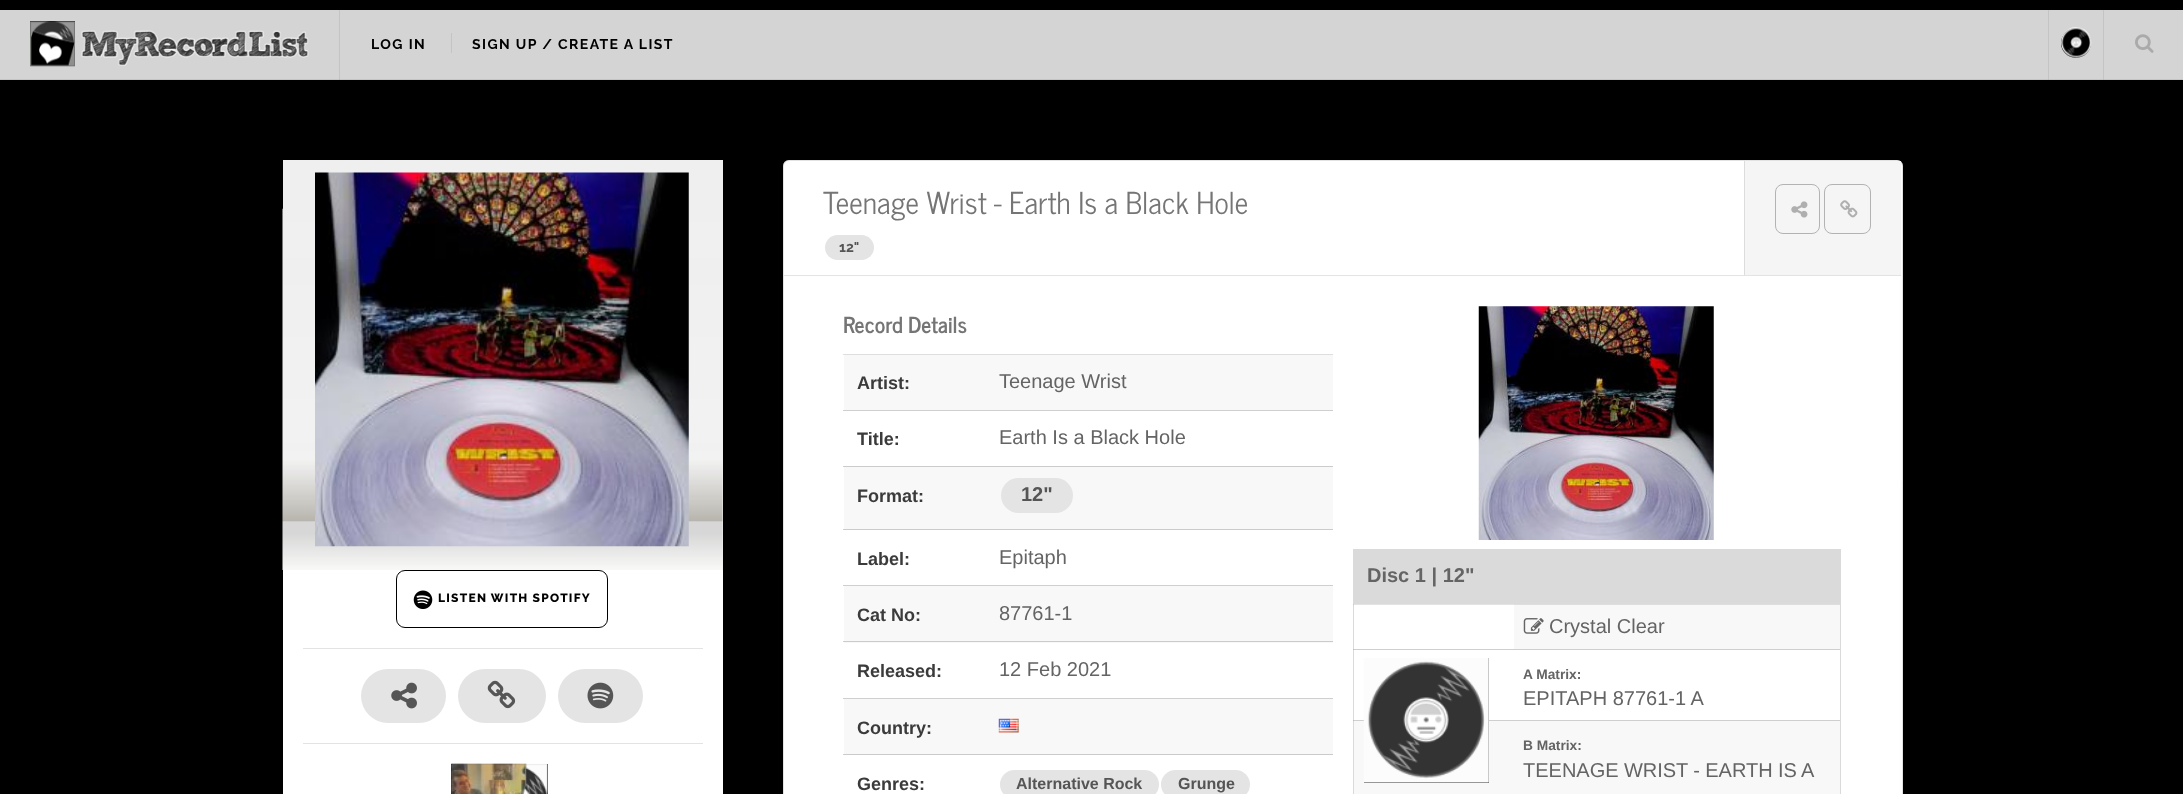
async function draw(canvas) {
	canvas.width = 2183;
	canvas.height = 794;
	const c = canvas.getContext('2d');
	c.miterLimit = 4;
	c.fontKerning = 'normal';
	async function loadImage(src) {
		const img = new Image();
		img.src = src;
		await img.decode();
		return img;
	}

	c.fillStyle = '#000';
	c.fillRect(0, 0, 2183, 794);
	for (const [x, y, w, h, color] of [
		[0, 10, 2183, 69, '#d4d4d4'],
		[339, 10, 1, 70, '#c4c4c4'],
		[2103, 10, 1, 70, '#c4c4c4'],
		[2048, 10, 1, 70, '#c4c4c4'],
		[0, 79, 2183, 1, '#c4c4c4'],
		[339, 79, 1, 1, '#b9b9b9'],
		[2103, 79, 1, 1, '#b9b9b9'],
		[2048, 79, 1, 1, '#b9b9b9'],
		[30, 21, 45, 45, '#000'],
	]) {
		c.fillStyle = color;
		c.fillRect(x, y, w, h);
	}
	c.drawImage(await loadImage('img1.png'), 30, 21, 45, 46);
	c.drawImage(await loadImage('img2.png'), 75, 30, 234, 36);
	c.letterSpacing = '1.4px';
	c.font = 'bold 14px Raleway';
	c.fillText('LOG IN', 371, 49);
	c.fillStyle = '#c4c4c4';
	c.fillRect(451, 33, 1, 20);
	c.fillStyle = '#000';
	c.fillText('SIGN UP / CREATE A LIST', 472, 49);
	c.drawImage(await loadImage('img3.png'), 2061, 27, 30, 31);
	c.beginPath();
	c.arc(2076, 43, 15, 0, 2 * Math.PI);
	c.fill();
	c.drawImage(await loadImage('img4.png'), 2061, 27, 31, 31);
	c.drawImage(await loadImage('img5.png'), 2135, 34, 19, 19);
	c.fillStyle = '#fff';
	c.fillRect(283, 570, 440, 224);
	c.fillStyle = '#efefef';
	c.fillRect(283, 160, 440, 410);
	c.drawImage(await loadImage('img6.png'), 282, 208, 441, 362);
	c.drawImage(await loadImage('img7.png'), 315, 172, 374, 375);
	c.beginPath();
	c.roundRect(396.5, 570.5, 211, 57, 8.5);
	c.strokeStyle = '#000';
	c.stroke();
	c.drawImage(await loadImage('img8.png'), 413, 590, 20, 19);
	c.letterSpacing = '1.25px';
	c.font = '800 12px Raleway';
	c.fillStyle = '#000';
	c.fillText('LISTEN WITH SPOTIFY', 438, 602);
	c.fillStyle = '#e3e3e3';
	c.fillRect(303, 648, 400, 1);
	c.fillStyle = '#e4e4e4';
	c.beginPath();
	c.roundRect(361, 669, 85, 54, 27);
	c.fill();
	c.drawImage(await loadImage('img9.png'), 391, 682, 26, 27);
	c.beginPath();
	c.roundRect(458, 669, 88, 54, 27);
	c.fill();
	c.drawImage(await loadImage('img10.png'), 487, 680, 29, 29);
	c.beginPath();
	c.roundRect(558, 669, 85, 54, 27);
	c.fill();
	c.drawImage(await loadImage('img11.png'), 587, 682, 27, 27);
	c.fillStyle = '#e3e3e3';
	c.fillRect(303, 743, 400, 1);
	c.fillStyle = '#000';
	c.fillRect(451, 764, 97, 30);
	c.drawImage(await loadImage('img12.png'), 451, 763, 76, 31);
	c.drawImage(await loadImage('img13.png'), 451, 763, 97, 31);
	c.fillStyle = '#fff';
	c.beginPath();
	c.roundRect(783, 160, 1120, 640, 6);
	c.fill();
	for (const [x, y, w, h, color] of [
		[1514, 649, 326, 1, '#cfcfcf'],
		[1514, 720, 326, 1, '#cfcfcf'],
		[843, 354, 1, 1, '#e3e3e3'],
		[843, 466, 1, 1, '#cfcfcf'],
		[843, 529, 1, 1, '#cfcfcf'],
		[843, 641, 1, 1, '#cfcfcf'],
		[843, 754, 1, 1, '#cfcfcf'],
	]) {
		c.fillStyle = color;
		c.fillRect(x, y, w, h);
	}
	c.beginPath();
	c.roundRect(783.5, 160.5, 1119, 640, 5.5);
	c.strokeStyle = '#a0a0a04d';
	c.stroke();
	c.fillStyle = '#e3e3e3';
	c.fillRect(784, 275, 1117, 1);
	c.letterSpacing = '0px';
	c.font = '30px News Cycle';
	c.fillStyle = '#757575';
	c.fillText('Teenage Wrist - Earth Is a Black Hole', 823, 214);
	c.fillStyle = '#e4e4e4';
	c.beginPath();
	c.roundRect(825, 235, 49, 25, 12.5);
	c.fill();
	c.font = 'bold 14px Raleway';
	c.fillStyle = '#555';
	c.fillText('12"', 839, 252);
	c.fillStyle = '#f5f5f5';
	c.fillRect(1745, 161, 156, 114);
	c.fillStyle = '#dcdcdc';
	c.fillRect(1744, 161, 1, 114);
	c.beginPath();
	c.roundRect(1775.5, 184.5, 44, 49, 7.5);
	c.strokeStyle = '#b3b3b3';
	c.stroke();
	c.drawImage(await loadImage('img14.png'), 1791, 201, 17, 17);
	c.beginPath();
	c.roundRect(1824.5, 184.5, 46, 49, 7.5);
	c.stroke();
	c.drawImage(await loadImage('img15.png'), 1840, 200, 18, 18);
	c.font = 'bold 22px News Cycle';
	c.fillStyle = '#757575';
	c.fillText('Record Details', 843, 333);
	for (const [x, y, w, h, color] of [
		[844, 355, 489, 55, '#f8f8f8'],
		[844, 354, 489, 1, '#dedede'],
		[843, 410, 490, 1, '#cfcfcf'],
	]) {
		c.fillStyle = color;
		c.fillRect(x, y, w, h);
	}
	c.font = 'bold 18px Liberation Sans';
	c.fillStyle = '#3c3b3b';
	c.fillText('Artist:', 857, 389);
	c.font = '20px Liberation Sans';
	c.fillStyle = '#646464';
	c.fillText('Teenage Wrist', 999, 388);
	c.font = 'bold 18px Liberation Sans';
	c.fillStyle = '#3c3b3b';
	c.fillText('Title:', 857, 445);
	c.font = '20px Liberation Sans';
	c.fillStyle = '#646464';
	c.fillText('Earth Is a Black Hole', 999, 444);
	for (const [x, y, w, h, color] of [
		[844, 467, 489, 62, '#f8f8f8'],
		[844, 466, 489, 1, '#cbcbcb'],
		[844, 529, 489, 1, '#cbcbcb'],
	]) {
		c.fillStyle = color;
		c.fillRect(x, y, w, h);
	}
	c.font = 'bold 18px Liberation Sans';
	c.fillStyle = '#3c3b3b';
	c.fillText('Format:', 857, 502);
	c.fillStyle = '#e4e4e4';
	c.beginPath();
	c.roundRect(1001, 478, 72, 35, 17.5);
	c.fill();
	c.font = 'bold 20px Liberation Sans';
	c.fillStyle = '#555';
	c.fillText('12"', 1021, 501);
	c.fillStyle = '#cfcfcf';
	c.fillRect(843, 585, 490, 1);
	c.font = 'bold 18px Liberation Sans';
	c.fillStyle = '#3c3b3b';
	c.fillText('Label:', 857, 565);
	c.font = '20px Liberation Sans';
	c.fillStyle = '#646464';
	c.fillText('Epitaph', 999, 564);
	c.fillStyle = '#f8f8f8';
	c.fillRect(844, 586, 489, 57);
	c.fillStyle = '#cbcbcb';
	c.fillRect(844, 641, 489, 1);
	c.font = 'bold 18px Liberation Sans';
	c.fillStyle = '#3c3b3b';
	c.fillText('Cat No:', 857, 621);
	c.font = '20px Liberation Sans';
	c.fillStyle = '#646464';
	c.fillText('87761-1', 999, 620);
	c.fillStyle = '#cfcfcf';
	c.fillRect(843, 698, 490, 1);
	c.font = 'bold 18px Liberation Sans';
	c.fillStyle = '#3c3b3b';
	c.fillText('Released:', 857, 677);
	c.font = '20px Liberation Sans';
	c.fillStyle = '#646464';
	c.fillText('12 Feb 2021', 999, 676);
	c.fillStyle = '#f8f8f8';
	c.fillRect(844, 699, 489, 55);
	c.fillStyle = '#cbcbcb';
	c.fillRect(844, 754, 489, 1);
	c.font = 'bold 18px Liberation Sans';
	c.fillStyle = '#3c3b3b';
	c.fillText('Country:', 857, 734);
	c.drawImage(await loadImage('img16.png'), 998, 718, 21, 15);
	c.fillText('Genres:', 857, 790);
	c.fillStyle = '#e4e4e4';
	c.beginPath();
	c.roundRect(1000, 770, 159, 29, 14.5);
	c.fill();
	c.font = 'bold 16px Liberation Sans';
	c.fillStyle = '#555';
	c.fillText('Alternative Rock', 1016, 789);
	c.fillStyle = '#e4e4e4';
	c.beginPath();
	c.roundRect(1161, 770, 89, 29, 14.5);
	c.fill();
	c.fillStyle = '#555';
	c.fillText('Grunge', 1178, 789);
	c.drawImage(await loadImage('img17.png'), 1478, 306, 236, 234);
	c.fillStyle = '#dadada';
	c.fillRect(1353, 549, 488, 55);
	c.font = 'bold 20px Liberation Sans';
	c.fillStyle = '#646464';
	c.fillText('Disc 1 | 12"', 1367, 582);
	for (const [x, y, w, h, color] of [
		[1840, 604, 1, 190, '#dadada'],
		[1353, 604, 1, 190, '#dadada'],
		[1353, 604, 1, 1, '#c9c9c9'],
		[1353, 649, 1, 1, '#bdbdbd'],
		[1353, 720, 1, 1, '#bdbdbd'],
		[1514, 605, 326, 44, '#f8f8f8'],
		[1514, 604, 326, 1, '#dedede'],
		[1354, 604, 160, 1, '#e3e3e3'],
		[1354, 649, 160, 1, '#cfcfcf'],
		[1354, 720, 160, 1, '#cfcfcf'],
		[1354, 721, 486, 73, '#f8f8f8'],
		[1364, 658, 125, 125, '#333'],
	]) {
		c.fillStyle = color;
		c.fillRect(x, y, w, h);
	}
	c.drawImage(await loadImage('img18.png'), 1363, 658, 126, 125);
	c.drawImage(await loadImage('img19.png'), 1523, 618, 21, 16);
	c.font = '20px Liberation Sans';
	c.fillStyle = '#646464';
	c.fillText('Crystal Clear', 1549, 633);
	c.font = 'bold 13.75px Liberation Sans';
	c.fillText('A Matrix:', 1523, 679);
	c.font = '20px Liberation Sans';
	c.fillText('EPITAPH 87761-1 A', 1523, 705);
	c.font = 'bold 13.75px Liberation Sans';
	c.fillText('B Matrix:', 1523, 750);
	c.wordSpacing = '-0.25px';
	c.font = '20px Liberation Sans';
	c.fillText('TEENAGE WRIST - EARTH IS A', 1523, 777);
}

draw(document.querySelector('canvas'));
